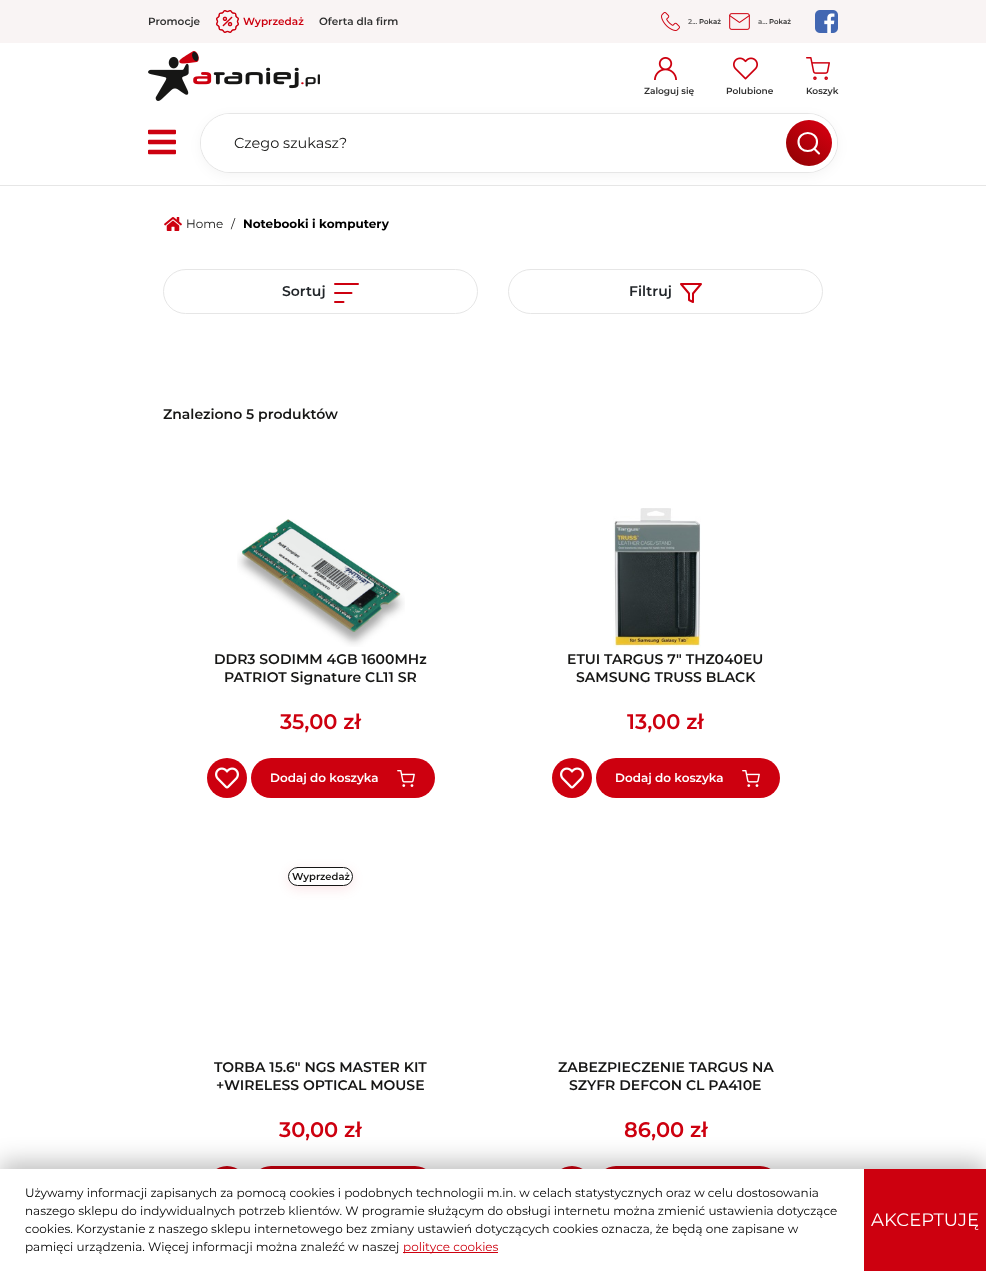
async function draw(canvas) {
	canvas.width = 986;
	canvas.height = 1271;
	const c = canvas.getContext('2d');
	c.miterLimit = 4;
	c.fontKerning = 'normal';
	async function loadImage(src) {
		const img = new Image();
		img.src = src;
		await img.decode();
		return img;
	}
	let gradient;

	c.fillStyle = '#fff';
	c.fillRect(0, 0, 986, 1271);
	c.fillStyle = '#e6e6e6';
	c.fillRect(0, 185, 986, 1);
	c.fillStyle = '#f9f4f4';
	c.fillRect(0, 0, 986, 43);
	c.font = '600 10.5px Montserrat';
	c.fillStyle = '#313131';
	c.fillText('Promocje', 148, 25);
	c.drawImage(await loadImage('img1.png'), 216, 10, 23, 23);
	c.fillStyle = '#cd000f';
	c.fillText('Wyprzedaż', 243, 25);
	c.fillStyle = '#313131';
	c.fillText('Oferta dla firm', 319, 25);
	c.drawImage(await loadImage('img2.png'), 661, 12, 19, 19);
	c.font = '600 7px Montserrat';
	c.fillStyle = '#646464';
	c.fillText('2...', 688, 24);
	c.fillStyle = '#313131';
	c.fillText('Pokaż', 699, 24);
	c.drawImage(await loadImage('img3.png'), 729, 13, 21, 17);
	c.fillStyle = '#646464';
	c.fillText('a...', 758, 24);
	c.fillStyle = '#313131';
	c.fillText('Pokaż', 769, 24);
	c.drawImage(await loadImage('img4.png'), 815, 10, 23, 23);
	c.drawImage(await loadImage('img5.png'), 148, 51, 172, 50);
	c.drawImage(await loadImage('img6.png'), 654, 57, 23, 23);
	c.font = '600 9px Montserrat';
	c.fillText('Zaloguj się', 644, 94);
	c.drawImage(await loadImage('img7.png'), 733, 57, 25, 23);
	c.fillText('Polubione', 726, 94);
	c.drawImage(await loadImage('img8.png'), 806, 57, 24, 23);
	c.fillText('Koszyk', 806, 94);
	c.drawImage(await loadImage('img9.png'), 148, 129, 28, 26);
	c.fillStyle = '#0000000a';
	c.filter = 'blur(6px)';
	c.beginPath();
	c.roundRect(200, 116, 638, 60, 30);
	c.fill();
	c.filter = 'none';
	c.beginPath();
	c.roundRect(200.5, 113.5, 637, 59, 29.5);
	c.strokeStyle = '#e6e6e6';
	c.stroke();
	c.fillStyle = '#fff';
	c.beginPath();
	c.roundRect(201, 114, 636, 58, 29);
	c.fill();
	c.beginPath();
	c.moveTo(230, 172);
	c.lineTo(808, 172);
	c.lineTo(816, 171);
	c.lineTo(222, 171);
	c.closePath();
	c.moveTo(202, 151);
	c.bezierCurveTo(201, 146, 201, 140, 202, 135);
	c.closePath();
	c.moveTo(230, 114);
	c.lineTo(222, 115);
	c.lineTo(816, 115);
	c.lineTo(808, 114);
	c.closePath();
	c.moveTo(836, 135);
	c.lineTo(836, 151);
	c.bezierCurveTo(837, 146, 837, 140, 836, 135);
	c.closePath();
	c.fill('evenodd');
	c.font = '14.5px Montserrat';
	c.fillStyle = '#161615';
	c.fillText('Czego szukasz?', 234, 148);
	gradient = c.createLinearGradient(830, 118, 788, 168);
	gradient.addColorStop(0.2, '#cd000f');
	gradient.addColorStop(1, '#8c0303');
	c.fillStyle = gradient;
	c.beginPath();
	c.arc(809, 143, 23, 0, 2 * Math.PI);
	c.fill();
	c.beginPath();
	c.moveTo(817, 142);
	c.bezierCurveTo(817, 154, 798.5, 154, 798.5, 142);
	c.bezierCurveTo(798.5, 130, 817, 130, 817, 142);
	c.closePath();
	c.moveTo(819, 153.5);
	c.lineTo(814, 148.5);
	c.strokeStyle = '#fff';
	c.lineWidth = 2.1;
	c.lineCap = 'round';
	c.lineJoin = 'round';
	c.stroke();
	c.drawImage(await loadImage('img10.png'), 164, 217, 18, 14);
	c.font = '12px Montserrat';
	c.fillStyle = '#161615';
	c.fillText('Home', 186, 228);
	c.fillText('/', 231, 228);
	c.font = 'bold 12px Montserrat';
	c.fillStyle = '#000';
	c.fillText('Notebooki i komputery', 243, 228);
	c.beginPath();
	c.roundRect(163.5, 269.5, 314, 44, 22);
	c.strokeStyle = '#e6e6e6';
	c.lineWidth = 1;
	c.lineJoin = 'miter';
	c.stroke();
	c.font = '600 14px Montserrat';
	c.fillStyle = '#212529';
	c.fillText('Sortuj', 282, 296);
	c.beginPath();
	c.moveTo(335, 284);
	c.lineTo(358, 284);
	c.moveTo(335, 293);
	c.lineTo(351.5, 293);
	c.moveTo(335, 302);
	c.lineTo(343.5, 302);
	c.strokeStyle = '#cd000f';
	c.lineWidth = 2;
	c.lineJoin = 'round';
	c.stroke();
	c.beginPath();
	c.roundRect(508.5, 269.5, 314, 44, 22);
	c.strokeStyle = '#e6e6e6';
	c.lineWidth = 1;
	c.lineJoin = 'miter';
	c.stroke();
	c.fillText('Filtruj', 629, 296);
	c.beginPath();
	c.moveTo(701, 284);
	c.lineTo(681, 284);
	c.lineTo(689, 293.5);
	c.lineTo(689, 300);
	c.lineTo(693, 302);
	c.lineTo(693, 293.5);
	c.closePath();
	c.strokeStyle = '#cd000f';
	c.lineWidth = 2;
	c.lineJoin = 'round';
	c.stroke();
	c.fillStyle = '#161615';
	c.fillText('Znaleziono 5 produktów', 163, 419);
	c.drawImage(await loadImage('img11.png'), 237, 519, 168, 128);
	c.fillText('DDR3 SODIMM 4GB 1600MHz', 214, 664);
	c.fillText('PATRIOT Signature CL11 SR', 224, 682);
	c.font = '600 21px Montserrat';
	c.fillStyle = '#cd000f';
	c.fillText('35,00 zł', 280, 729);
	c.beginPath();
	c.arc(227, 778, 20, 0, 2 * Math.PI);
	c.fill();
	c.drawImage(await loadImage('img12.png'), 215, 767, 24, 22);
	c.beginPath();
	c.roundRect(251, 758, 184, 40, 20);
	c.fill();
	c.font = '600 12px Montserrat';
	c.fillStyle = '#fff';
	c.fillText('Dodaj do koszyka', 270, 782);
	c.drawImage(await loadImage('img13.png'), 397, 770, 18, 17);
	c.drawImage(await loadImage('img14.png'), 613, 508, 88, 140);
	c.font = '600 14px Montserrat';
	c.fillStyle = '#161615';
	c.fillText('ETUI TARGUS 7" THZ040EU', 567, 664);
	c.fillText('SAMSUNG TRUSS BLACK', 576, 682);
	c.font = '600 21px Montserrat';
	c.fillStyle = '#cd000f';
	c.fillText('13,00 zł', 627, 729);
	c.beginPath();
	c.arc(572, 778, 20, 0, 2 * Math.PI);
	c.fill();
	c.drawImage(await loadImage('img12.png'), 560, 767, 24, 22);
	c.beginPath();
	c.roundRect(596, 758, 184, 40, 20);
	c.fill();
	c.font = '600 12px Montserrat';
	c.fillStyle = '#fff';
	c.fillText('Dodaj do koszyka', 615, 782);
	c.drawImage(await loadImage('img13.png'), 742, 770, 18, 17);
	c.save();
	c.beginPath();
	c.moveTo(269, 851);
	c.lineTo(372, 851);
	c.lineTo(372, 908);
	c.lineTo(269, 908);
	c.closePath();
	c.moveTo(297.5, 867);
	c.lineTo(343.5, 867);
	c.bezierCurveTo(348.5, 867, 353, 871.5, 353, 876.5);
	c.bezierCurveTo(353, 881.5, 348.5, 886, 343.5, 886);
	c.lineTo(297.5, 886);
	c.bezierCurveTo(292.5, 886, 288, 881.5, 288, 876.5);
	c.bezierCurveTo(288, 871.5, 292.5, 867, 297.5, 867);
	c.closePath();
	c.clip('evenodd');
	c.fillStyle = '#cd000f1a';
	c.filter = 'blur(6px)';
	c.beginPath();
	c.roundRect(288, 870, 65, 19, 9.5);
	c.fill();
	c.filter = 'none';
	c.restore();
	c.beginPath();
	c.roundRect(288.5, 867.5, 64, 18, 9);
	c.strokeStyle = '#161615';
	c.lineWidth = 1;
	c.lineJoin = 'miter';
	c.stroke();
	c.font = '600 10px Montserrat';
	c.fillStyle = '#161615';
	c.fillText('Wyprzedaż', 292, 880);
	c.font = '600 14px Montserrat';
	c.fillText('TORBA 15.6" NGS MASTER KIT', 214, 1072);
	c.fillText('+WIRELESS OPTICAL MOUSE', 216, 1090);
	c.font = '600 21px Montserrat';
	c.fillStyle = '#cd000f';
	c.fillText('30,00 zł', 279, 1137);
	c.beginPath();
	c.arc(227, 1186, 20, 0, 2 * Math.PI);
	c.fill();
	c.beginPath();
	c.roundRect(251, 1166, 184, 40, 20);
	c.fill();
	c.font = '600 14px Montserrat';
	c.fillStyle = '#161615';
	c.fillText('ZABEZPIECZENIE TARGUS NA', 558, 1072);
	c.fillText('SZYFR DEFCON CL PA410E', 569, 1090);
	c.font = '600 21px Montserrat';
	c.fillStyle = '#cd000f';
	c.fillText('86,00 zł', 624, 1137);
	c.beginPath();
	c.arc(572, 1186, 20, 0, 2 * Math.PI);
	c.fill();
	c.beginPath();
	c.roundRect(596, 1166, 184, 40, 20);
	c.fill();
	c.fillStyle = '#00000040';
	c.filter = 'blur(11.5px)';
	c.beginPath();
	c.rect(0, 1162, 986, 102);
	c.fill();
	c.filter = 'none';
	c.fillStyle = '#fff';
	c.fillRect(0, 1169, 864, 102);
	c.font = '12px Montserrat';
	c.fillStyle = '#000';
	for (const [text, x, y] of [
		['Używamy informacji zapisanych za pomocą cookies i podobnych technologii m.in. w celach statystycznych oraz w celu dostosowania', 25, 1197],
		['naszego sklepu do indywidualnych potrzeb klientów. W programie służącym do obsługi internetu można zmienić ustawienia dotyczące', 25, 1215],
		['cookies. Korzystanie z naszego sklepu internetowego bez zmiany ustawień dotyczących cookies oznacza, że będą one zapisane w', 25, 1233],
		['pamięci urządzenia. Więcej informacji można znaleźć w naszej', 25, 1251],
	]) {
		c.fillText(text, x, y);
	}
	c.fillStyle = '#cd000f';
	c.fillRect(403, 1252, 95, 1);
	c.fillText('polityce cookies', 403, 1251);
	c.fillRect(864, 1169, 122, 102);
	c.font = '18px Montserrat';
	c.fillStyle = '#fff';
	c.fillText('AKCEPTUJĘ', 871, 1226);
}

draw(document.querySelector('canvas'));
